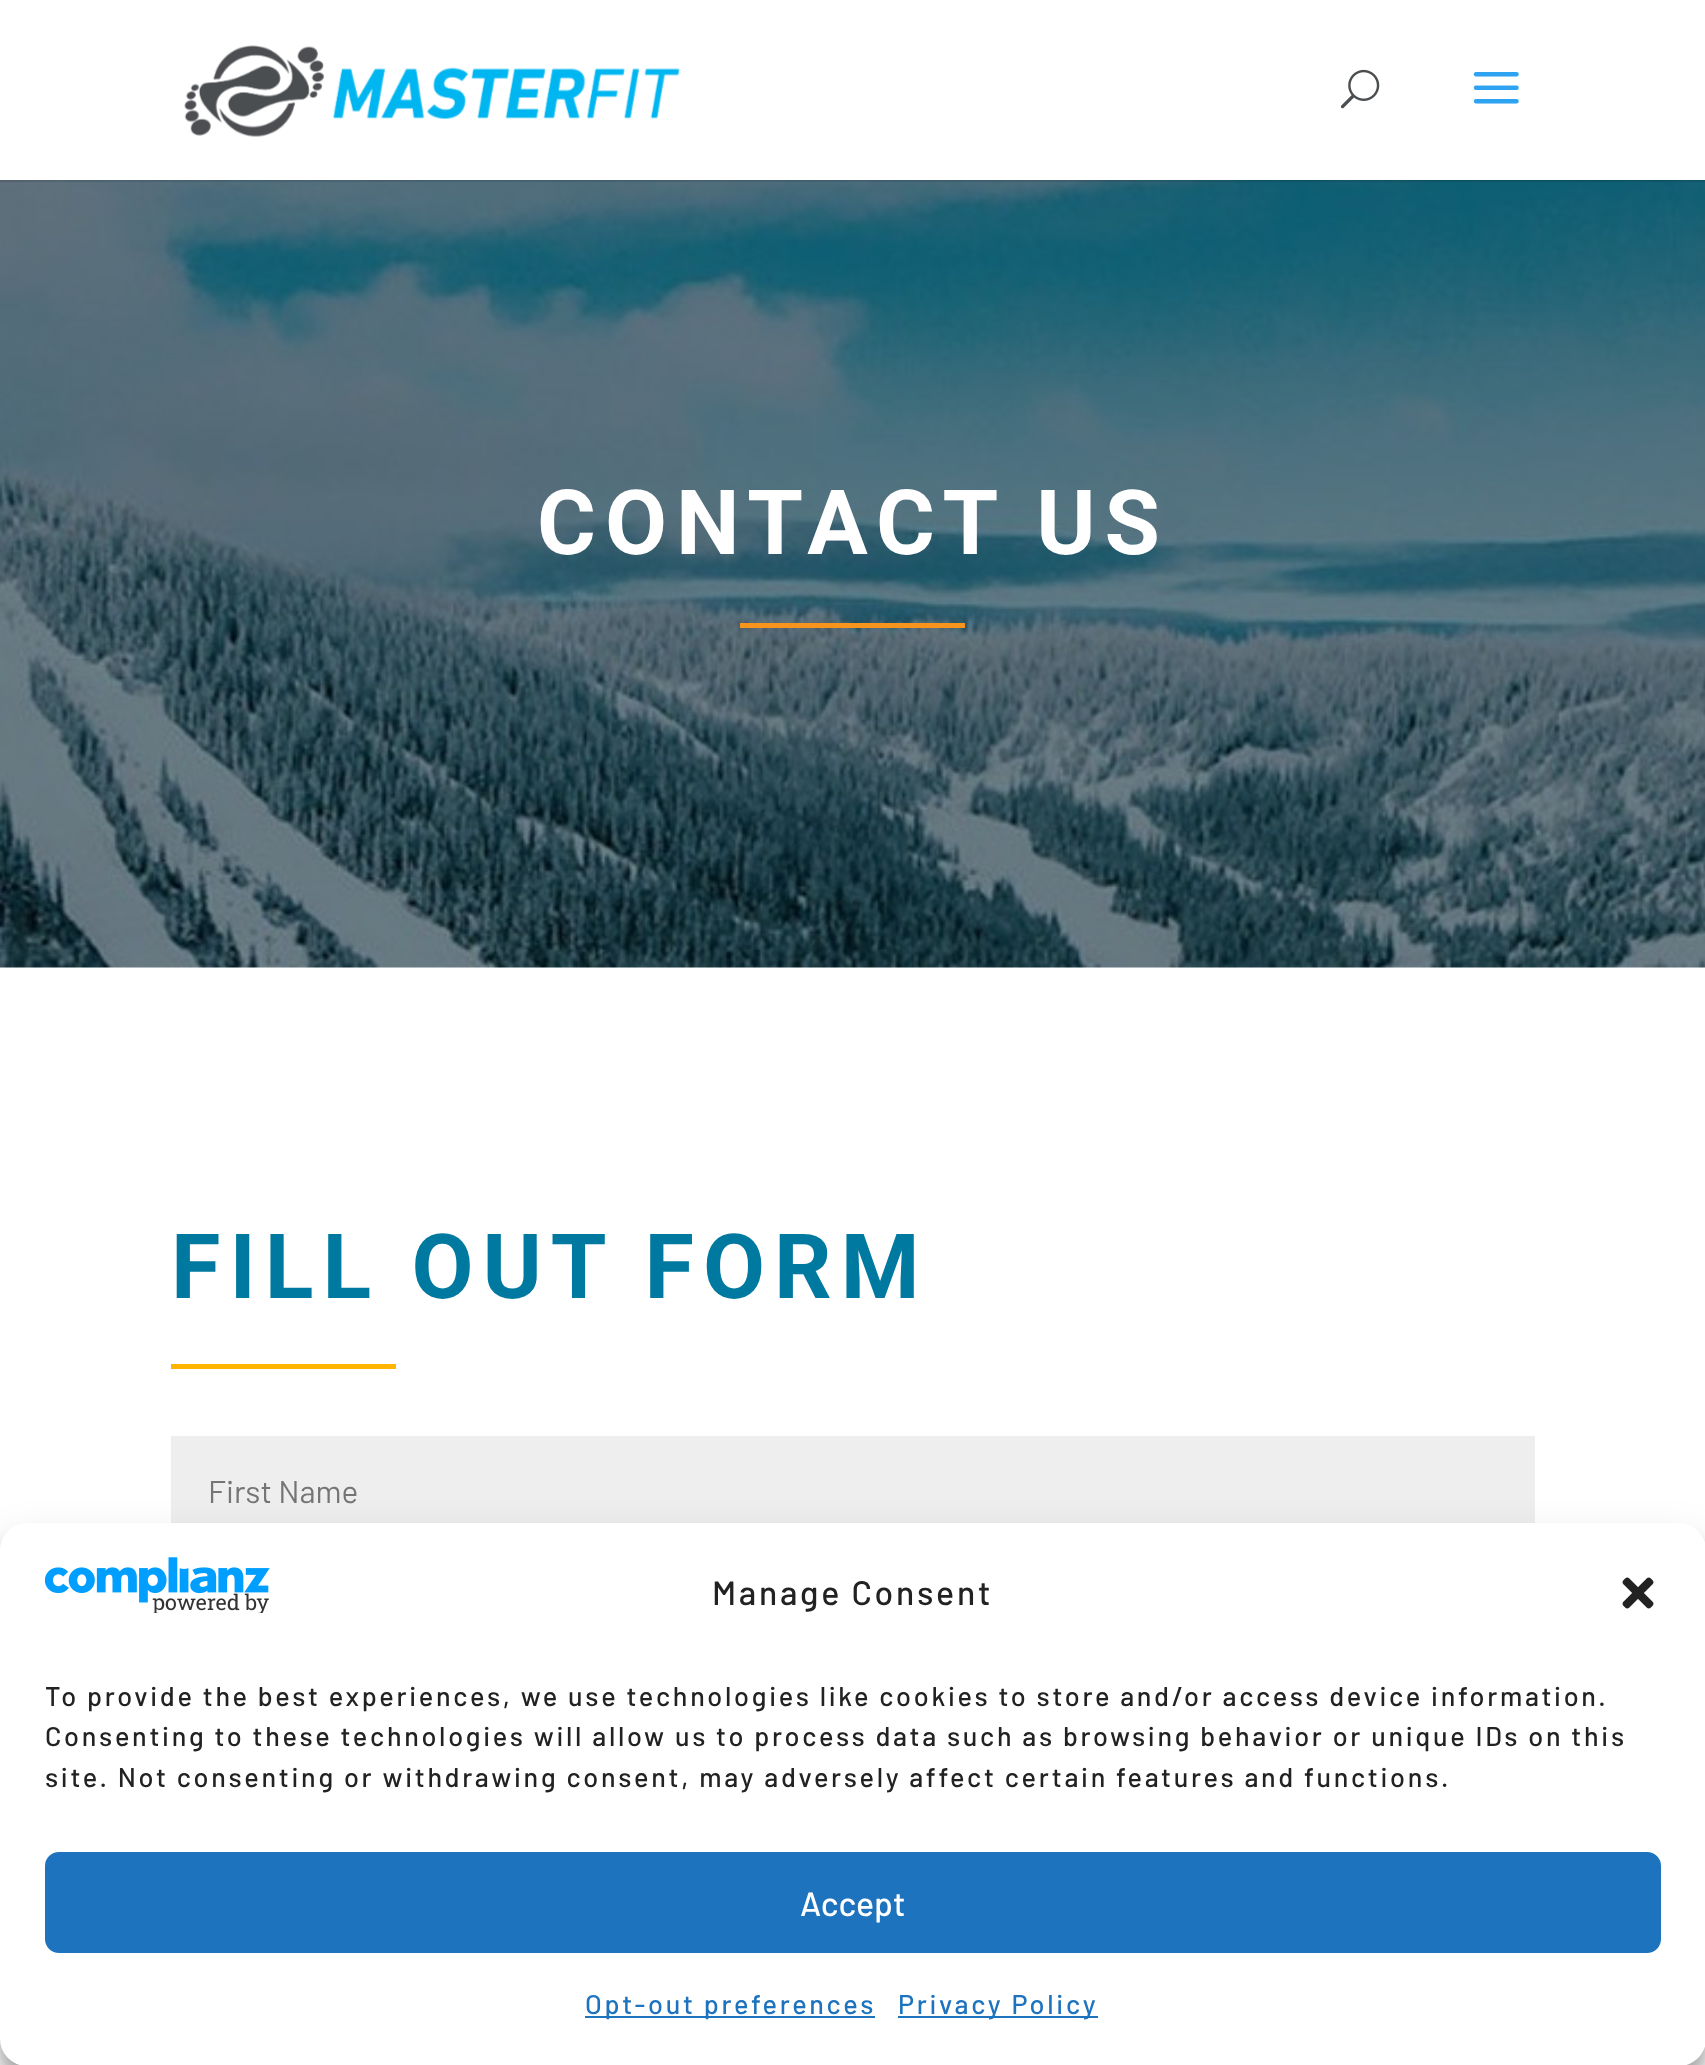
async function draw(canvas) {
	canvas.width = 1705;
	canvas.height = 2065;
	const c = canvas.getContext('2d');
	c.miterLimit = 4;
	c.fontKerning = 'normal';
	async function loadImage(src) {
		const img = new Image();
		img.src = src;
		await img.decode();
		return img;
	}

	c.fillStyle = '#fff';
	c.fillRect(0, 0, 1705, 2065);
	c.drawImage(await loadImage('img4.png'), 0, 180, 1705, 788);
	c.fillStyle = '#0000001a';
	c.beginPath();
	c.moveTo(0, 180);
	c.lineTo(0, 182);
	c.lineTo(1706, 182);
	c.lineTo(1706, 2);
	c.lineTo(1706, 180);
	c.closePath();
	c.fill();
	c.drawImage(await loadImage('img1.png'), 184, 45, 496, 92);
	c.drawImage(await loadImage('img2.png'), 1340, 69, 40, 40);
	c.drawImage(await loadImage('img3.png'), 1473, 72, 46, 32);
	c.letterSpacing = '9px';
	c.font = 'bold 90px Roboto';
	c.fillStyle = '#fff';
	c.fillText('CONTACT US', 537, 554);
	c.fillStyle = '#f7941d';
	c.fillRect(740, 623, 225, 5);
	c.fillStyle = '#0079a1';
	c.fillText('FILL OUT FORM', 171, 1298);
	c.fillStyle = '#ffb500';
	c.fillRect(171, 1364, 225, 5);
	c.fillStyle = '#eee';
	c.fillRect(171, 1436, 1364, 87);
	c.letterSpacing = '0px';
	c.font = '31.5px Barlow';
	c.fillStyle = '#757575';
	c.fillText('First Name', 208, 1503);
	c.fillStyle = '#0000003b';
	c.filter = 'blur(7px)';
	c.beginPath();
	c.roundRect(0, 1537, 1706, 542, 27);
	c.fill();
	c.filter = 'none';
	c.fillStyle = '#00000030';
	c.filter = 'blur(22.5px)';
	c.beginPath();
	c.roundRect(0, 1546, 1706, 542, 27);
	c.fill();
	c.filter = 'none';
	c.fillStyle = '#fff';
	c.beginPath();
	c.roundRect(0, 1523, 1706, 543, 27);
	c.fill();
	c.drawImage(await loadImage('img5.png'), 45, 1557, 225, 56);
	c.letterSpacing = '2.7px';
	c.font = '500 33.75px Barlow';
	c.fillStyle = '#222';
	c.fillText('Manage Consent', 712, 1605);
	c.drawImage(await loadImage('img6.png'), 1622, 1577, 32, 32);
	c.font = '500 27px Barlow';
	for (const [text, x, y] of [
		['To provide the best experiences, we use technologies like cookies to store and/or access device information.', 45, 1706],
		['Consenting to these technologies will allow us to process data such as browsing behavior or unique IDs on this', 45, 1746],
		['site. Not consenting or withdrawing consent, may adversely affect certain features and functions.', 45, 1787],
	]) {
		c.fillText(text, x, y);
	}
	c.fillStyle = '#1e73be';
	c.beginPath();
	c.roundRect(46, 1853, 1614, 99, 13);
	c.fill();
	c.strokeStyle = '#1e73be';
	c.lineWidth = 2;
	c.stroke();
	c.letterSpacing = '0px';
	c.font = '500 33.75px Barlow';
	c.fillStyle = '#fff';
	c.fillText('Accept', 800, 1916);
	c.fillStyle = '#1e73be';
	c.fillRect(585, 2016, 290, 2);
	c.letterSpacing = '2.7px';
	c.font = '500 27px Barlow';
	c.fillText('Opt-out preferences', 585, 2014);
	c.fillRect(898, 2016, 200, 2);
	c.fillText('Privacy Policy', 898, 2014);
}

draw(document.querySelector('canvas'));
